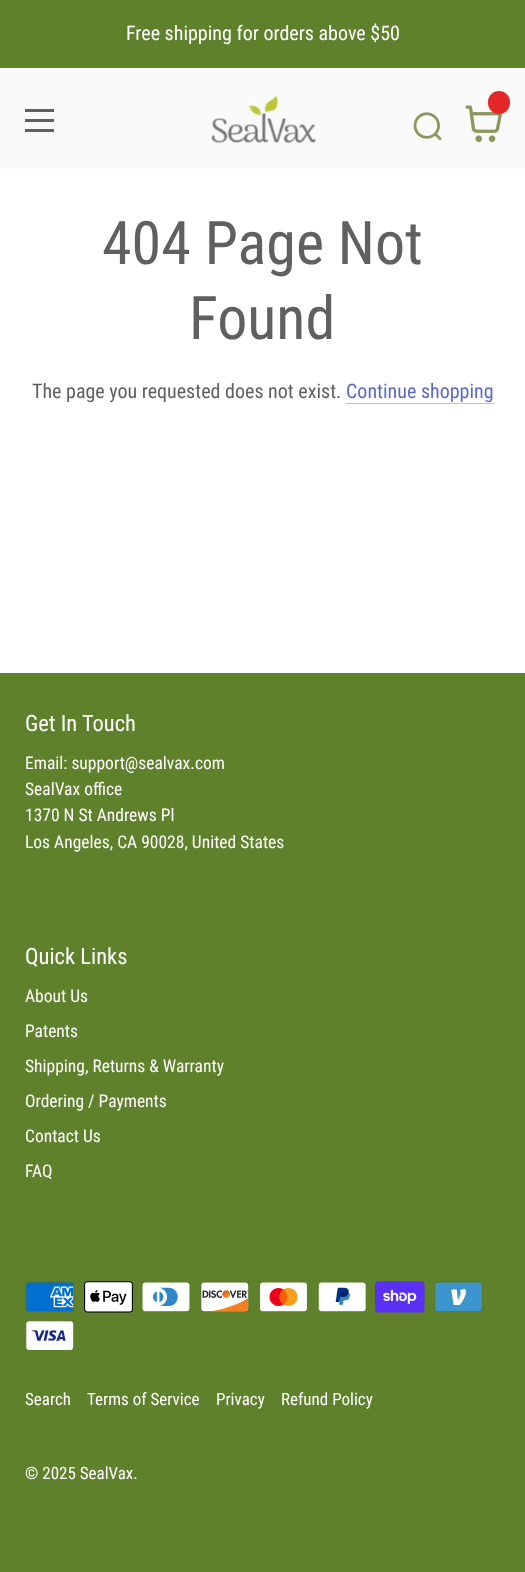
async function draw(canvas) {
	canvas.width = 525;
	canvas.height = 1572;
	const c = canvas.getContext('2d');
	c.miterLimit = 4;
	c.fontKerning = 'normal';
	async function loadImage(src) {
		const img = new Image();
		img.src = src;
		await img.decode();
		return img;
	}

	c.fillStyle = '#fff';
	c.fillRect(0, 0, 525, 1572);
	c.fillStyle = '#fafafa';
	c.fillRect(0, 68, 525, 101);
	c.fillStyle = '#5f812c';
	c.fillRect(0, 0, 525, 68);
	c.font = '20px Roboto Condensed';
	c.fillStyle = '#fff';
	c.fillText('Free shipping for orders above $50', 126, 40);
	for (const [x, y, w, h, color] of [
		[25, 109, 29, 3, '#606060'],
		[25, 119, 29, 3, '#606060'],
		[25, 129, 29, 3, '#606060'],
	]) {
		c.fillStyle = color;
		c.fillRect(x, y, w, h);
	}
	c.drawImage(await loadImage('img1.png'), 211, 96, 105, 48);
	c.drawImage(await loadImage('img2.png'), 413, 112, 29, 29);
	c.drawImage(await loadImage('img3.png'), 465, 105, 37, 38);
	c.fillStyle = '#e42626';
	c.beginPath();
	c.roundRect(488, 91, 22, 23, 11);
	c.fill();
	c.font = '60px Roboto Condensed';
	c.fillStyle = '#606060';
	c.fillText('404 Page Not', 102, 264);
	c.fillText('Found', 189, 339);
	c.font = '20px Roboto Condensed';
	c.fillText('The page you requested does not exist.', 32, 398);
	c.fillStyle = '#5c6ac4';
	c.fillText('Continue shopping', 346, 398);
	c.fillStyle = '#ecb1b0';
	c.fillRect(346, 403, 148, 1);
	c.fillStyle = '#5f812c';
	c.fillRect(0, 673, 525, 899);
	c.font = '22.5px Roboto Condensed';
	c.fillStyle = '#fff';
	c.fillText('Get In Touch', 25, 731);
	c.font = '17.5px Roboto Condensed';
	for (const [text, x, y] of [
		['Email: support@sealvax.com', 25, 769],
		['SealVax office', 25, 795],
		['1370 N St Andrews Pl', 25, 821],
		['Los Angeles, CA 90028, United States', 25, 848],
	]) {
		c.fillText(text, x, y);
	}
	c.font = '22.5px Roboto Condensed';
	c.fillText('Quick Links', 25, 964);
	c.font = '17.5px Roboto Condensed';
	for (const [text, x, y] of [
		['About Us', 25, 1002],
		['Patents', 25, 1037],
		['Shipping, Returns & Warranty', 25, 1072],
		['Ordering / Payments', 25, 1107],
		['Contact Us', 25, 1142],
		['FAQ', 25, 1177],
	]) {
		c.fillText(text, x, y);
	}
	c.drawImage(await loadImage('img4.png'), 25, 1281, 50, 32);
	c.drawImage(await loadImage('img5.png'), 84, 1281, 49, 32);
	c.drawImage(await loadImage('img6.png'), 142, 1282, 48, 30);
	c.drawImage(await loadImage('img7.png'), 200, 1281, 50, 32);
	c.drawImage(await loadImage('img8.png'), 260, 1282, 47, 30);
	c.drawImage(await loadImage('img9.png'), 318, 1282, 48, 30);
	c.drawImage(await loadImage('img10.png'), 375, 1281, 50, 32);
	c.drawImage(await loadImage('img11.png'), 434, 1281, 49, 31);
	c.drawImage(await loadImage('img12.png'), 26, 1321, 48, 29);
	c.font = '17px Roboto Condensed';
	for (const [text, x, y] of [
		['Search', 25, 1405],
		['Terms of Service', 87, 1405],
		['Privacy', 216, 1405],
		['Refund Policy', 281, 1405],
		['© 2025 SealVax.', 25, 1479],
	]) {
		c.fillText(text, x, y);
	}
}

draw(document.querySelector('canvas'));
